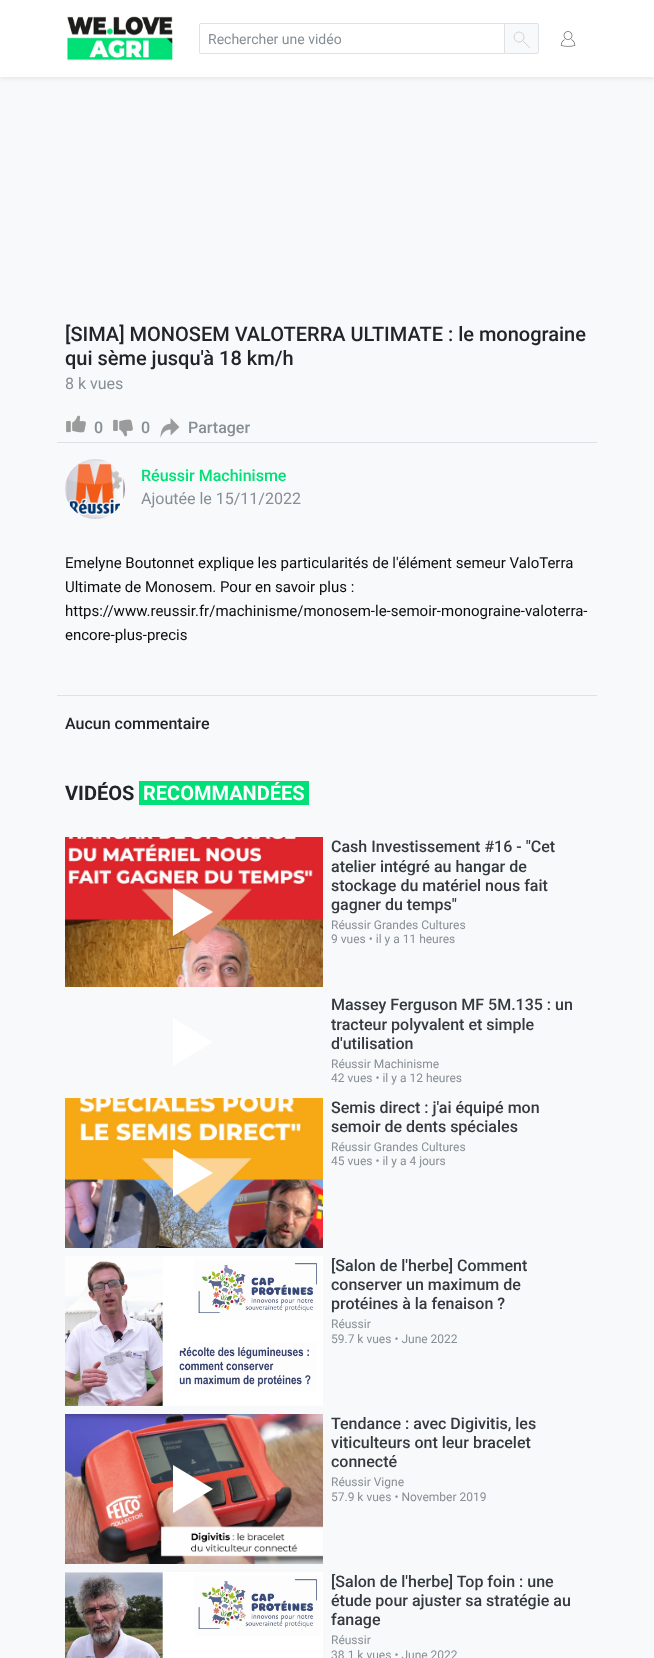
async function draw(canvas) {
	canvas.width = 654;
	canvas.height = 1658;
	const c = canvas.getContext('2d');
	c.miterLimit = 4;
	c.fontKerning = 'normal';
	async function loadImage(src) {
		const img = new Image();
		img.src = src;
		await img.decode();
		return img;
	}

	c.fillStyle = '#f8f9fa';
	c.fillRect(0, 0, 654, 1658);
	c.fillStyle = '#00000012';
	c.filter = 'blur(2px)';
	c.beginPath();
	c.rect(0, 2, 654, 77);
	c.fill();
	c.filter = 'none';
	c.fillStyle = '#fff';
	c.fillRect(0, 0, 654, 77);
	c.drawImage(await loadImage('img1.png'), 67, 16, 106, 45);
	c.beginPath();
	c.roundRect(199.5, 23.5, 305, 30, [1.5, 0, 0, 1.5]);
	c.strokeStyle = '#dee2e6';
	c.stroke();
	c.font = '14px Roboto';
	c.fillStyle = '#868e96';
	c.fillText('Rechercher une vidéo', 208, 44);
	c.fillStyle = '#f8f9fa';
	c.beginPath();
	c.roundRect(504.5, 23.5, 34, 30, [0, 1.5, 1.5, 0]);
	c.fill();
	c.stroke();
	c.beginPath();
	c.arc(519, 37, 5, 0, 2 * Math.PI);
	c.strokeStyle = '#c8c8c8';
	c.lineWidth = 0.8;
	c.stroke();
	c.beginPath();
	c.moveTo(523, 41);
	c.lineTo(529.5, 47.5);
	c.lineCap = 'round';
	c.lineJoin = 'round';
	c.stroke();
	c.drawImage(await loadImage('img2.png'), 560, 31, 16, 16);
	c.font = '500 20px Roboto';
	c.fillStyle = '#212529';
	c.fillText('[SIMA] MONOSEM VALOTERRA ULTIMATE : le monograine', 65, 341);
	c.fillText('qui sème jusqu\'à 18 km/h', 65, 365);
	c.font = '16px Roboto';
	c.fillStyle = '#868e96';
	c.fillText('8 k vues', 65, 389);
	c.drawImage(await loadImage('img3.png'), 66, 415, 20, 18);
	c.font = '500 16px Roboto';
	c.fillText('0', 94, 433);
	c.drawImage(await loadImage('img4.png'), 113, 419, 20, 18);
	c.fillText('0', 141, 433);
	c.drawImage(await loadImage('img5.png'), 160, 418, 20, 20);
	c.fillText('Partager', 188, 433);
	c.fillStyle = '#dee2e6';
	c.fillRect(57, 442, 540, 1);
	c.drawImage(await loadImage('img6.png'), 65, 459, 60, 60);
	c.fillStyle = '#00e077';
	c.fillText('Réussir Machinisme', 141, 481);
	c.font = '16px Roboto';
	c.fillStyle = '#868e96';
	c.fillText('Ajoutée le 15/11/2022', 141, 504);
	c.fillStyle = '#dee2e6';
	c.fillRect(57, 695, 540, 1);
	c.font = '15px Roboto';
	c.fillStyle = '#0d0d0d';
	for (const [text, x, y] of [
		['Emelyne Boutonnet explique les particularités de l\'élément semeur ValoTerra', 65, 568],
		['Ultimate de Monosem. Pour en savoir plus :', 65, 592],
		['https://www.reussir.fr/machinisme/monosem-le-semoir-monograine-valoterra-', 65, 616],
		['encore-plus-precis', 65, 640],
	]) {
		c.fillText(text, x, y);
	}
	c.font = '500 16px Roboto';
	c.fillStyle = '#212529';
	c.fillText('Aucun commentaire', 65, 729);
	c.font = 'bold 20px Roboto';
	c.fillText('VIDÉOS', 65, 800);
	c.fillStyle = '#00e077';
	c.fillRect(139, 781, 170, 24);
	c.fillStyle = '#fff';
	c.fillText('RECOMMANDÉES', 143, 800);
	c.drawImage(await loadImage('img7.png'), 65, 837, 258, 150);
	c.beginPath();
	c.moveTo(173, 936);
	c.lineTo(173, 888);
	c.lineTo(213, 912);
	c.closePath();
	c.fill();
	c.font = '500 16px Roboto';
	c.fillStyle = '#343a40';
	for (const [text, x, y] of [
		['Cash Investissement #16 - "Cet', 331, 852],
		['atelier intégré au hangar de', 331, 872],
		['stockage du matériel nous fait', 331, 891],
		['gagner du temps"', 331, 910],
	]) {
		c.fillText(text, x, y);
	}
	c.font = '12px Roboto';
	c.fillStyle = '#868e96';
	c.fillText('Réussir Grandes Cultures', 331, 929);
	c.fillText('9 vues • il y a 11 heures', 331, 943);
	c.fillStyle = '#fff';
	c.beginPath();
	c.moveTo(173, 1066);
	c.lineTo(173, 1018);
	c.lineTo(213, 1042);
	c.closePath();
	c.fill();
	c.font = '500 16px Roboto';
	c.fillStyle = '#343a40';
	for (const [text, x, y] of [
		['Massey Ferguson MF 5M.135 : un', 331, 1010],
		['tracteur polyvalent et simple', 331, 1030],
		['d\'utilisation', 331, 1049],
	]) {
		c.fillText(text, x, y);
	}
	c.font = '12px Roboto';
	c.fillStyle = '#868e96';
	c.fillText('Réussir Machinisme', 331, 1068);
	c.fillText('42 vues • il y a 12 heures', 331, 1082);
	c.drawImage(await loadImage('img8.png'), 65, 1098, 258, 150);
	c.fillStyle = '#fff';
	c.beginPath();
	c.moveTo(173, 1197);
	c.lineTo(173, 1149);
	c.lineTo(213, 1173);
	c.closePath();
	c.fill();
	c.font = '500 16px Roboto';
	c.fillStyle = '#343a40';
	c.fillText('Semis direct : j\'ai équipé mon', 331, 1113);
	c.fillText('semoir de dents spéciales', 331, 1132);
	c.font = '12px Roboto';
	c.fillStyle = '#868e96';
	c.fillText('Réussir Grandes Cultures', 331, 1151);
	c.fillText('45 vues • il y a 4 jours', 331, 1165);
	c.drawImage(await loadImage('img9.png'), 65, 1256, 258, 150);
	c.fillStyle = '#fff';
	c.beginPath();
	c.moveTo(173, 1355);
	c.lineTo(173, 1307);
	c.lineTo(213, 1331);
	c.closePath();
	c.fill();
	c.font = '500 16px Roboto';
	c.fillStyle = '#343a40';
	for (const [text, x, y] of [
		['[Salon de l\'herbe] Comment', 331, 1271],
		['conserver un maximum de', 331, 1290],
		['protéines à la fenaison ?', 331, 1309],
	]) {
		c.fillText(text, x, y);
	}
	c.font = '12px Roboto';
	c.fillStyle = '#868e96';
	c.fillText('Réussir', 331, 1328);
	c.fillText('59.7 k vues • June 2022', 331, 1343);
	c.drawImage(await loadImage('img10.png'), 65, 1414, 258, 150);
	c.fillStyle = '#fff';
	c.beginPath();
	c.moveTo(173, 1513);
	c.lineTo(173, 1465);
	c.lineTo(213, 1489);
	c.closePath();
	c.fill();
	c.font = '500 16px Roboto';
	c.fillStyle = '#343a40';
	for (const [text, x, y] of [
		['Tendance : avec Digivitis, les', 331, 1429],
		['viticulteurs ont leur bracelet', 331, 1448],
		['connecté', 331, 1467],
	]) {
		c.fillText(text, x, y);
	}
	c.font = '12px Roboto';
	c.fillStyle = '#868e96';
	c.fillText('Réussir Vigne', 331, 1486);
	c.fillText('57.9 k vues • November 2019', 331, 1501);
	c.drawImage(await loadImage('img11.png'), 65, 1572, 258, 86);
	c.font = '500 16px Roboto';
	c.fillStyle = '#343a40';
	for (const [text, x, y] of [
		['[Salon de l\'herbe] Top foin : une', 331, 1587],
		['étude pour ajuster sa stratégie au', 331, 1606],
		['fanage', 331, 1625],
	]) {
		c.fillText(text, x, y);
	}
	c.font = '12px Roboto';
	c.fillStyle = '#868e96';
	c.fillText('Réussir', 331, 1644);
	c.fillText('38.1 k vues • June 2022', 331, 1659);
}

draw(document.querySelector('canvas'));
